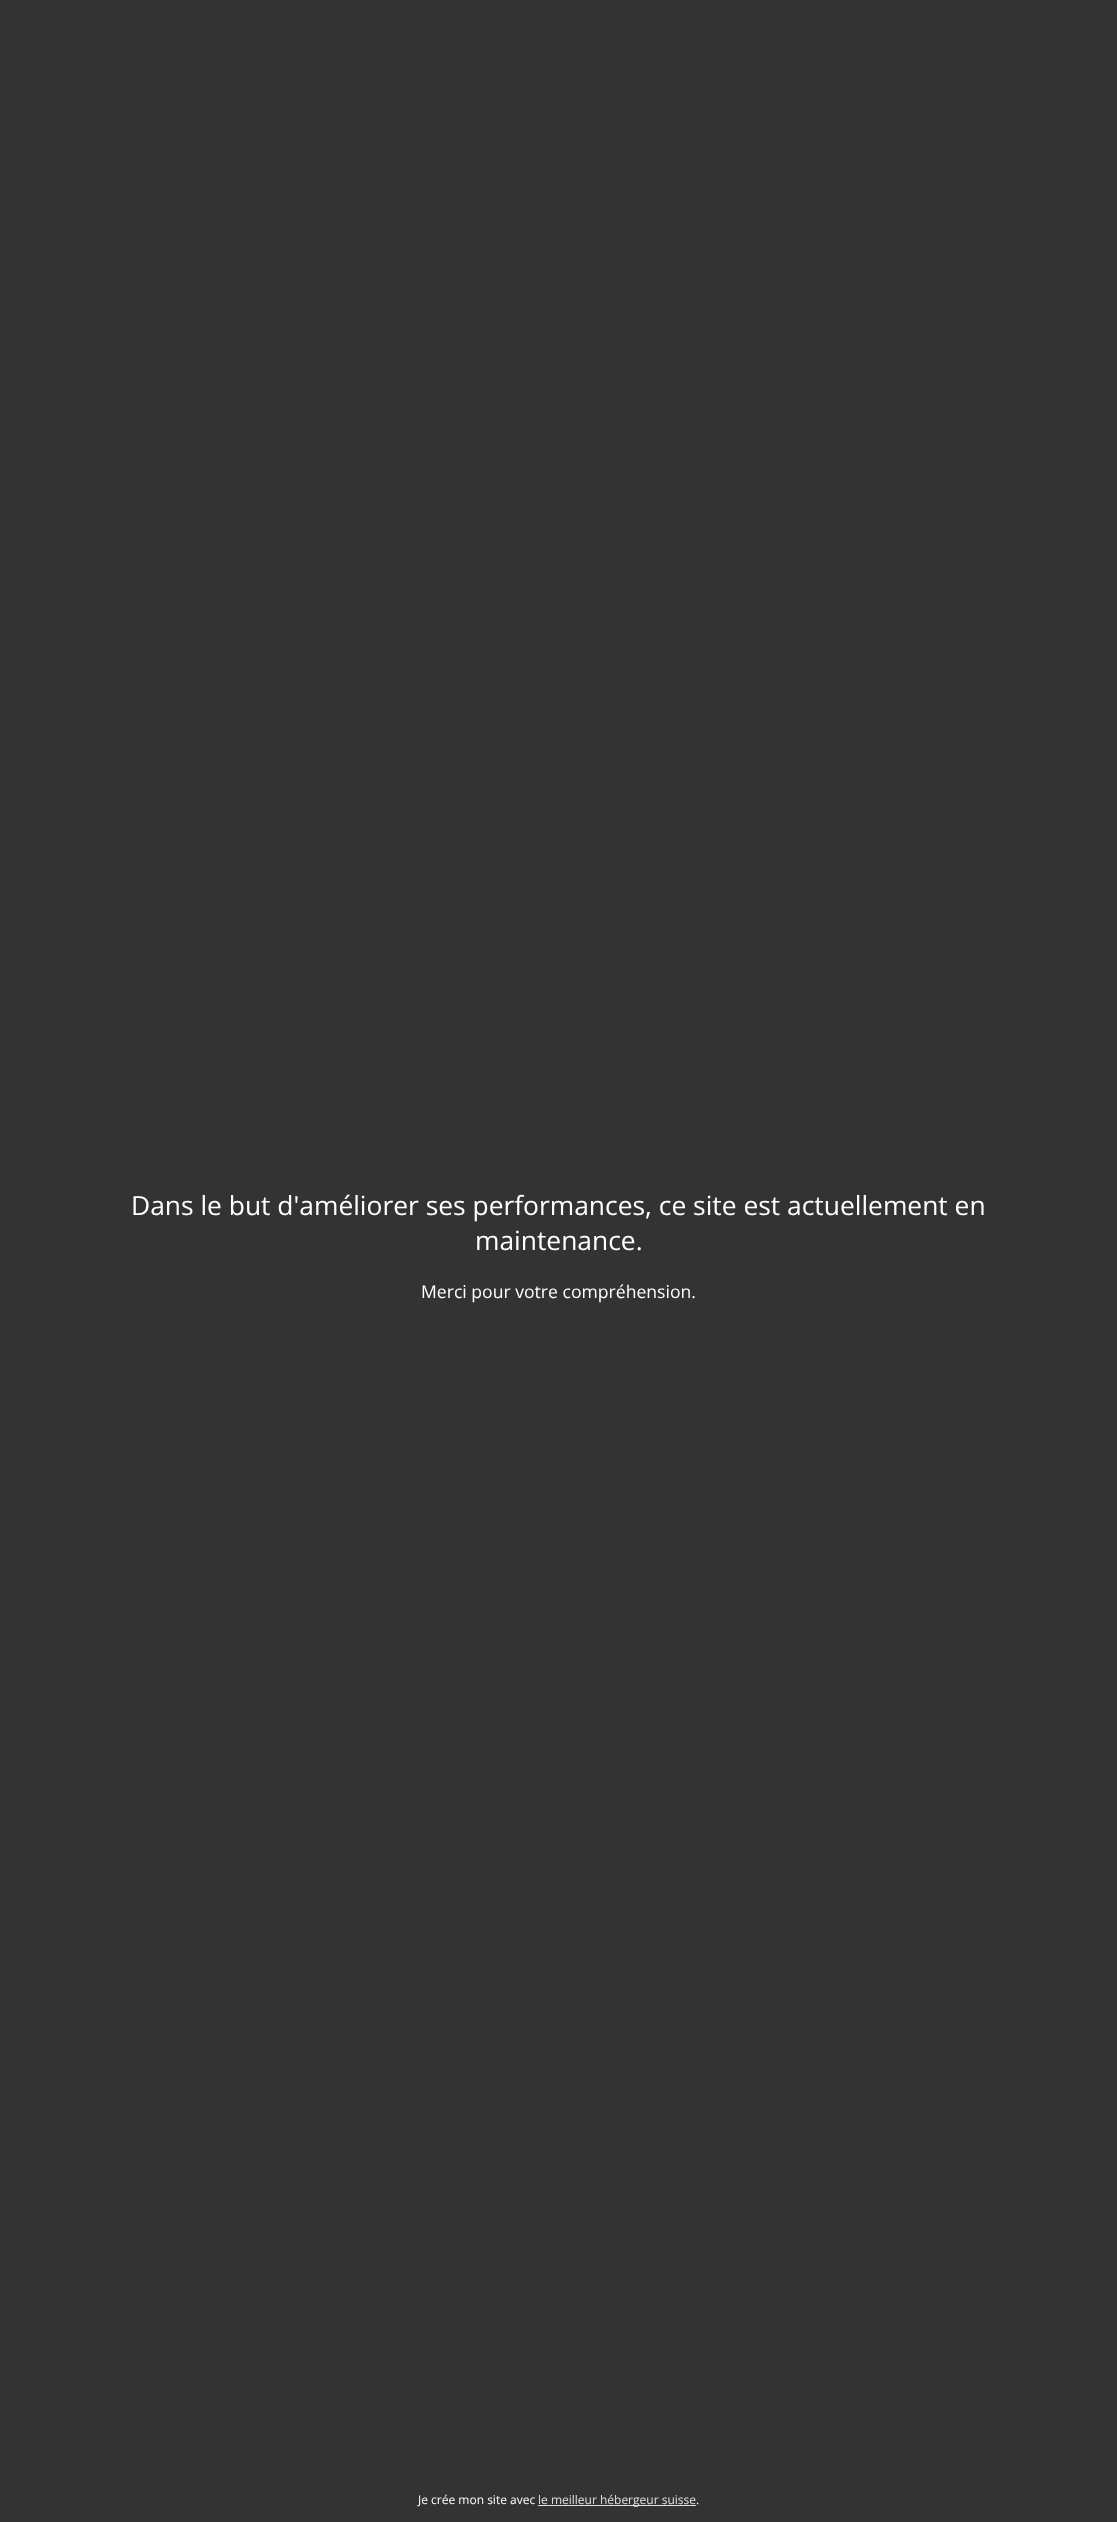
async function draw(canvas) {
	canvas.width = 1117;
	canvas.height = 2522;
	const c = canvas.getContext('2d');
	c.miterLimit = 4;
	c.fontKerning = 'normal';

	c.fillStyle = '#333';
	c.fillRect(0, 0, 1117, 2522);
	c.font = '26.4px Open Sans';
	c.fillStyle = '#fff';
	c.fillText('Dans le but d\'améliorer ses performances, ce site est actuellement en', 131, 1215);
	c.fillText('maintenance.', 475, 1250);
	c.font = '17.6px Open Sans';
	c.fillText('Merci pour votre compréhension.', 421, 1298);
	c.font = '12px Open Sans';
	c.fillText('Je crée mon site avec', 418, 2504);
	c.fillStyle = '#e0e0e0';
	c.fillRect(538, 2505, 158, 1);
	c.fillText('le meilleur hébergeur suisse', 538, 2504);
	c.fillStyle = '#fff';
	c.fillText('.', 696, 2504);
}

draw(document.querySelector('canvas'));
